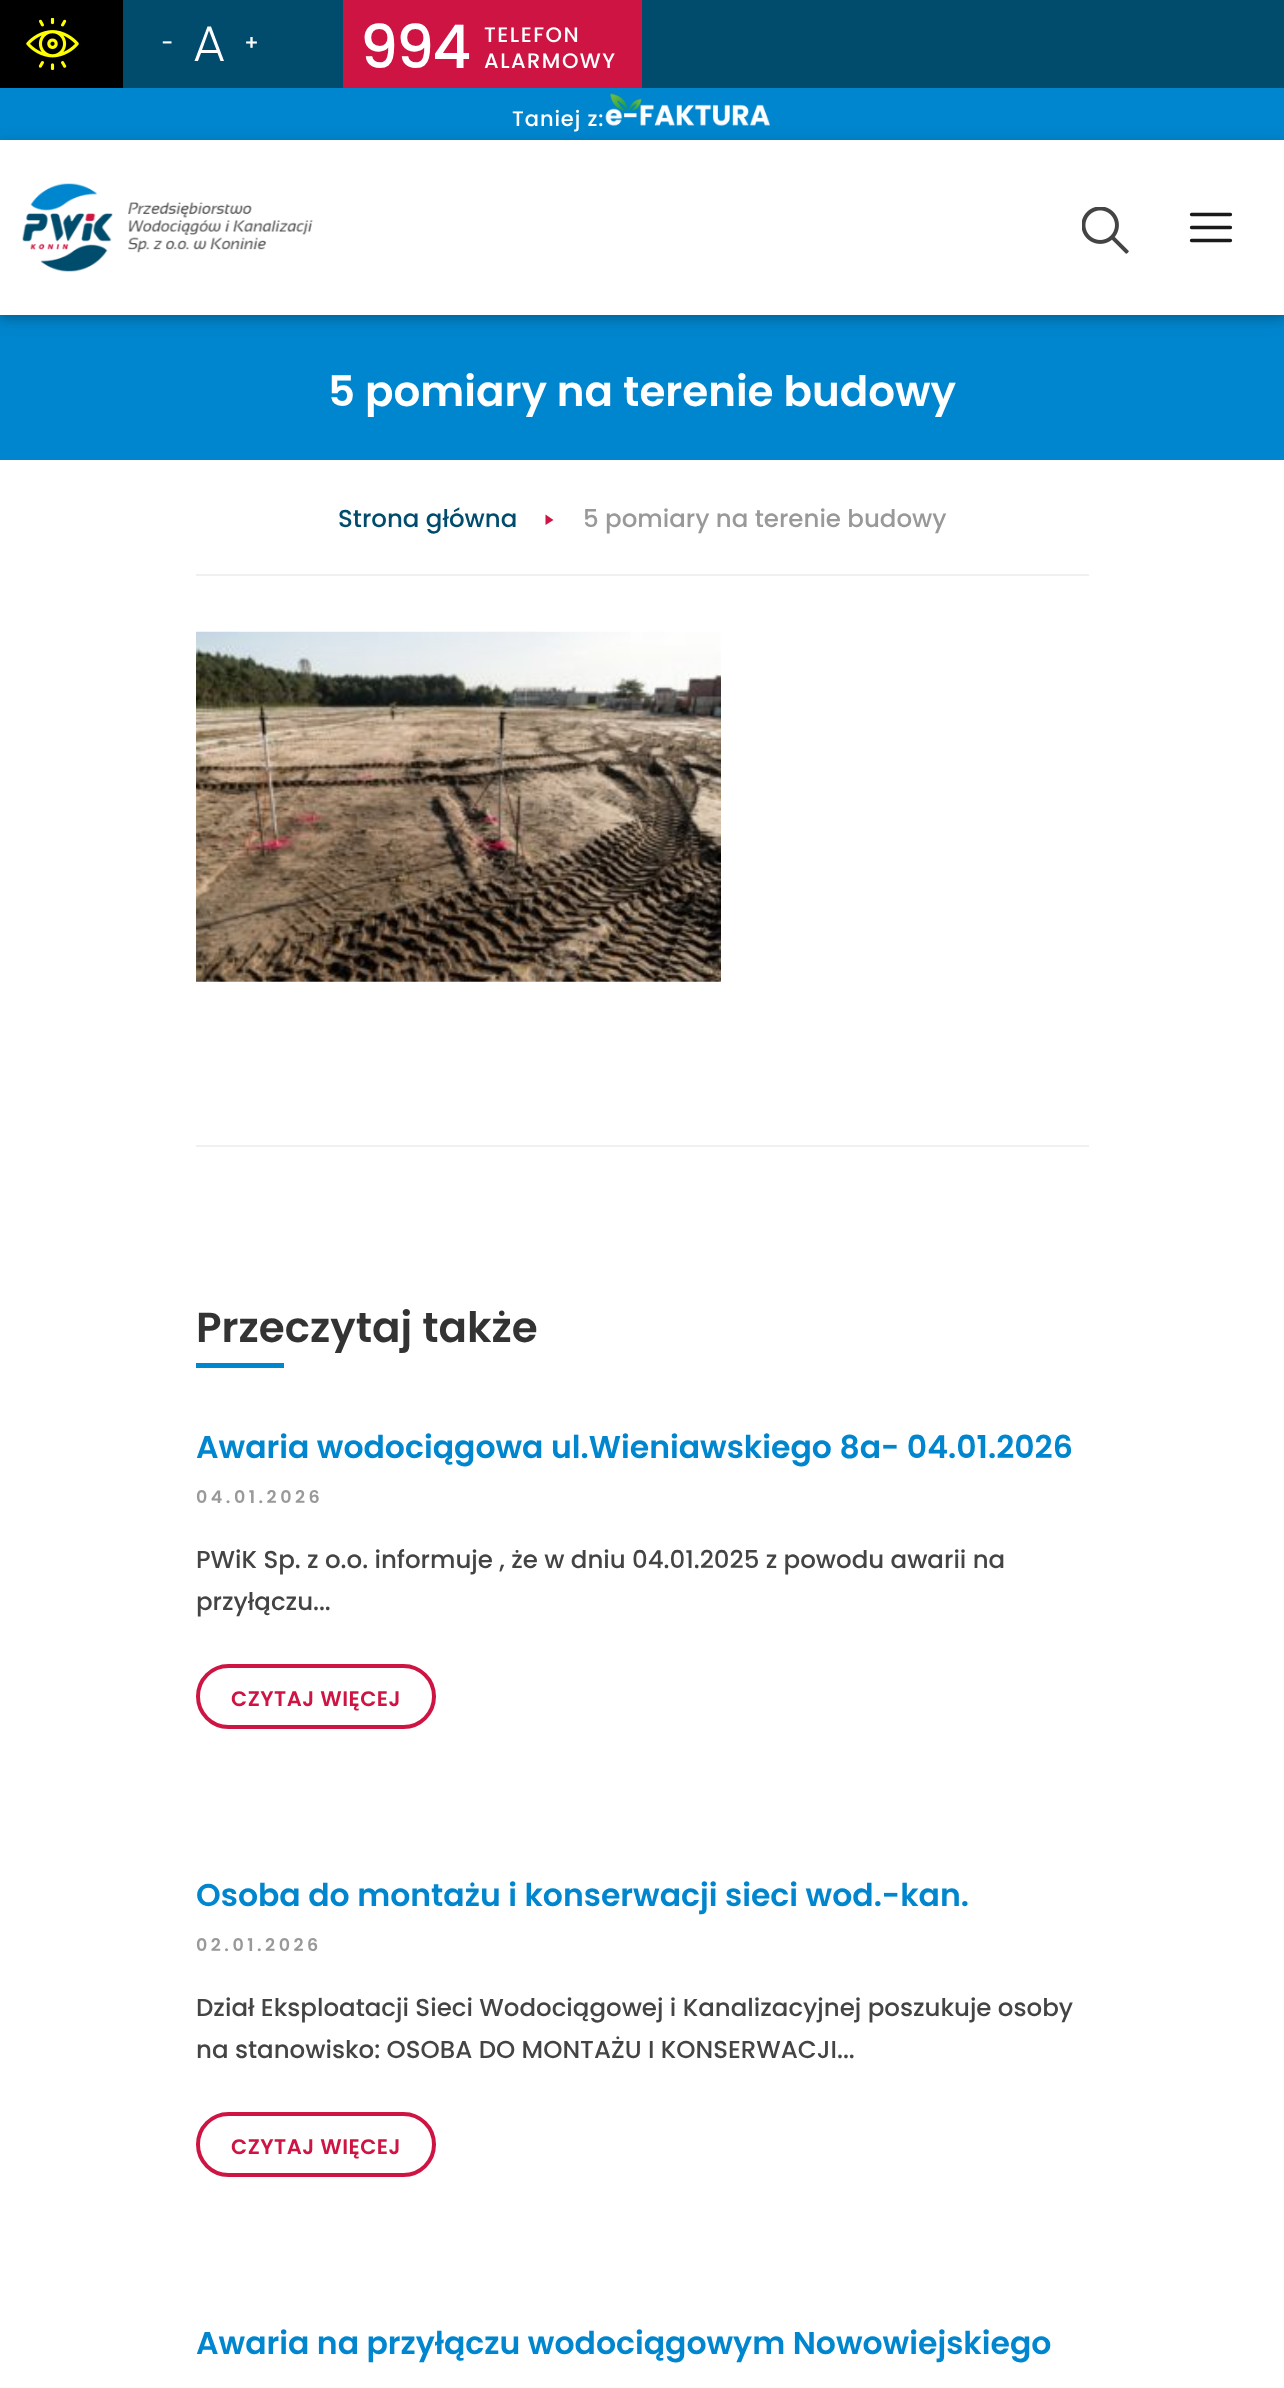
async function draw(canvas) {
	canvas.width = 1284;
	canvas.height = 2388;
	const c = canvas.getContext('2d');
	c.miterLimit = 4;
	c.fontKerning = 'normal';
	async function loadImage(src) {
		const img = new Image();
		img.src = src;
		await img.decode();
		return img;
	}

	c.fillStyle = '#fff';
	c.fillRect(0, 0, 1284, 2388);
	c.fillStyle = '#014c6d';
	c.fillRect(123, 0, 1161, 88);
	c.fillStyle = '#000';
	c.fillRect(0, 0, 123, 88);
	c.drawImage(await loadImage('img1.png'), 26, 18, 53, 52);
	c.letterSpacing = '0.9px';
	c.font = '500 21px Poppins';
	c.fillStyle = '#fff';
	c.fillText('-', 161, 50);
	c.beginPath();
	c.moveTo(220.5, 61);
	c.lineTo(217.5, 53);
	c.lineTo(201, 53);
	c.lineTo(198, 61);
	c.lineTo(194.5, 61);
	c.lineTo(207.5, 26.5);
	c.lineTo(211, 26.5);
	c.lineTo(224, 61);
	c.closePath();
	c.moveTo(202, 50);
	c.lineTo(216.5, 50);
	c.lineTo(209, 30.5);
	c.closePath();
	c.fill();
	c.fillText('+', 244, 50);
	c.fillStyle = '#ce1443';
	c.fillRect(343, 0, 299, 88);
	c.letterSpacing = '-2px';
	c.font = '500 60px Poppins';
	c.fillStyle = '#fff';
	c.fillText('994', 360, 68);
	c.letterSpacing = '1.5px';
	c.font = '500 21px Poppins';
	c.fillText('TELEFON', 484, 42);
	c.fillText('ALARMOWY', 484, 68);
	c.fillStyle = '#0086ce';
	c.fillRect(0, 88, 1284, 52);
	c.letterSpacing = '0.9px';
	c.fillStyle = '#fff';
	c.fillText('Taniej z:', 512, 126);
	c.drawImage(await loadImage('img2.png'), 605, 93, 165, 33);
	c.fillStyle = '#0086ce';
	c.fillRect(0, 315, 1284, 145);
	c.save();
	c.beginPath();
	c.moveTo(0, 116);
	c.lineTo(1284, 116);
	c.lineTo(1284, 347);
	c.lineTo(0, 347);
	c.closePath();
	c.moveTo(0, 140);
	c.lineTo(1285, 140);
	c.lineTo(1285, 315);
	c.lineTo(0, 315);
	c.closePath();
	c.clip('evenodd');
	c.fillStyle = '#0000001f';
	c.filter = 'blur(9px)';
	c.beginPath();
	c.rect(0, 144, 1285, 175);
	c.fill();
	c.filter = 'none';
	c.restore();
	c.save();
	c.beginPath();
	c.moveTo(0, 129);
	c.lineTo(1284, 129);
	c.lineTo(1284, 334);
	c.lineTo(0, 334);
	c.closePath();
	c.moveTo(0, 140);
	c.lineTo(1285, 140);
	c.lineTo(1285, 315);
	c.lineTo(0, 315);
	c.closePath();
	c.clip('evenodd');
	c.fillStyle = '#00000029';
	c.filter = 'blur(4.5px)';
	c.beginPath();
	c.rect(0, 144, 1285, 175);
	c.fill();
	c.filter = 'none';
	c.restore();
	c.drawImage(await loadImage('img3.png'), 22, 183, 291, 89);
	c.drawImage(await loadImage('img4.png'), 1082, 207, 47, 47);
	c.beginPath();
	c.moveTo(1191.5, 214.5);
	c.lineTo(1230.5, 214.5);
	c.moveTo(1191.5, 227.5);
	c.lineTo(1230.5, 227.5);
	c.moveTo(1191.5, 240.5);
	c.lineTo(1230.5, 240.5);
	c.strokeStyle = '#1a1a1a';
	c.lineWidth = 3.3;
	c.lineCap = 'round';
	c.stroke();
	c.letterSpacing = '0px';
	c.font = '600 42px Poppins';
	c.fillStyle = '#fff';
	c.fillText('5 pomiary na terenie budowy', 328, 406);
	c.font = '500 24.5px Poppins';
	c.fillStyle = '#014c6d';
	c.fillText('Strona główna', 338, 527);
	c.fillStyle = '#ce1443';
	c.beginPath();
	c.moveTo(553.5, 520);
	c.lineTo(545.5, 525);
	c.lineTo(545.5, 514.5);
	c.closePath();
	c.fill();
	c.fillStyle = '#999';
	c.fillText('5 pomiary na terenie budowy', 583, 527);
	c.fillStyle = '#f0f0f0';
	c.fillRect(196, 574, 893, 2);
	c.drawImage(await loadImage('img5.png'), 196, 631, 525, 351);
	c.fillRect(196, 1145, 893, 2);
	c.font = '600 42px Poppins';
	c.fillStyle = '#333';
	c.fillText('Przeczytaj także', 196, 1342);
	c.fillStyle = '#0086ce';
	c.fillRect(196, 1363, 88, 5);
	c.font = '600 31.5px Poppins';
	c.fillText('Awaria wodociągowa ul.Wieniawskiego 8a- 04.01.2026', 196, 1458);
	c.letterSpacing = '3.5px';
	c.font = '600 17.5px Poppins';
	c.fillStyle = '#999';
	c.fillText('04.01.2026', 196, 1503);
	c.letterSpacing = '0px';
	c.font = '500 24.5px Poppins';
	c.fillStyle = '#444';
	c.fillText('PWiK Sp. z o.o. informuje , że w dniu 04.01.2025 z powodu awarii na', 196, 1568);
	c.fillText('przyłączu...', 196, 1610);
	c.beginPath();
	c.roundRect(198, 1666, 236, 61, 30.5);
	c.strokeStyle = '#ce1443';
	c.lineWidth = 4;
	c.stroke();
	c.letterSpacing = '0.5px';
	c.font = '600 21px Poppins';
	c.fillStyle = '#ce1443';
	c.fillText('CZYTAJ WIĘCEJ', 231, 1706);
	c.letterSpacing = '0px';
	c.font = '600 31.5px Poppins';
	c.fillStyle = '#0086ce';
	c.fillText('Osoba do montażu i konserwacji sieci wod.-kan.', 196, 1906);
	c.letterSpacing = '3.5px';
	c.font = '600 17.5px Poppins';
	c.fillStyle = '#999';
	c.fillText('02.01.2026', 196, 1951);
	c.letterSpacing = '0px';
	c.font = '500 24.5px Poppins';
	c.fillStyle = '#444';
	c.fillText('Dział Eksploatacji Sieci Wodociągowej i Kanalizacyjnej poszukuje osoby', 196, 2016);
	c.fillText('na stanowisko: OSOBA DO MONTAŻU I KONSERWACJI...', 196, 2058);
	c.beginPath();
	c.roundRect(198, 2114, 236, 61, 30.5);
	c.stroke();
	c.letterSpacing = '0.5px';
	c.font = '600 21px Poppins';
	c.fillStyle = '#ce1443';
	c.fillText('CZYTAJ WIĘCEJ', 231, 2154);
	c.letterSpacing = '0px';
	c.font = '600 31.5px Poppins';
	c.fillStyle = '#0086ce';
	c.fillText('Awaria na przyłączu wodociągowym Nowowiejskiego', 196, 2354);
}

draw(document.querySelector('canvas'));
